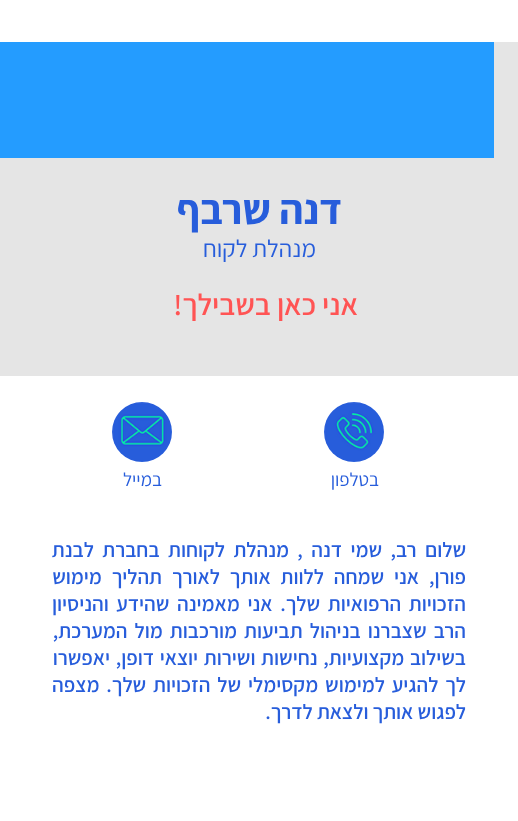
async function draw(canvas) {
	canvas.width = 518;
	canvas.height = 821;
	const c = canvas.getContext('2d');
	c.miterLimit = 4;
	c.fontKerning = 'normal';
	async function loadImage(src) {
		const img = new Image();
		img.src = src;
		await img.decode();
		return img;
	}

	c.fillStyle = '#fff';
	c.fillRect(0, 0, 518, 821);
	c.fillStyle = '#e5e5e5';
	c.fillRect(0, 42, 518, 334);
	c.fillStyle = '#249cff';
	c.fillRect(0, 42, 494, 116);
	c.direction = 'rtl';
	c.font = 'bold 42px Assistant';
	c.fillStyle = '#275ddb';
	c.fillText('דנה שרבף', 342, 224);
	c.font = '24.5px Assistant';
	c.fillText('מנהלת לקוח', 316, 257);
	c.font = '600 30px Assistant';
	c.fillStyle = '#ff5454';
	c.fillText('אני כאן בשבילך!', 358, 315);
	c.drawImage(await loadImage('img1.png'), 324, 402, 60, 60);
	c.drawImage(await loadImage('img2.png'), 112, 402, 60, 60);
	c.font = '19px Assistant';
	c.fillStyle = '#275ddb';
	c.fillText('בטלפון', 379, 486);
	c.fillText('במייל', 162, 486);
	c.wordSpacing = '4.25px';
	c.font = '600 20.9px Assistant';
	c.fillText('שלום רב, שמי דנה , מנהלת לקוחות בחברת לבנת', 466, 557);
	c.wordSpacing = '5.75px';
	c.fillText('פורן, אני שמחה ללוות אותך לאורך תהליך מימוש', 466, 584);
	c.wordSpacing = '3.5px';
	c.fillText('הזכויות הרפואיות שלך. אני מאמינה שהידע והניסיון', 466, 611);
	c.wordSpacing = '3px';
	c.fillText('הרב שצברנו בניהול תביעות מורכבות מול המערכת,', 466, 638);
	c.wordSpacing = '1.5px';
	c.fillText('בשילוב מקצועיות, נחישות ושירות יוצאי דופן, יאפשרו', 466, 665);
	c.wordSpacing = '2.75px';
	c.fillText('לך להגיע למימוש מקסימלי של הזכויות שלך. מצפה', 466, 692);
	c.wordSpacing = '0px';
	c.fillText('לפגוש אותך ולצאת לדרך.', 466, 719);
}

draw(document.querySelector('canvas'));
